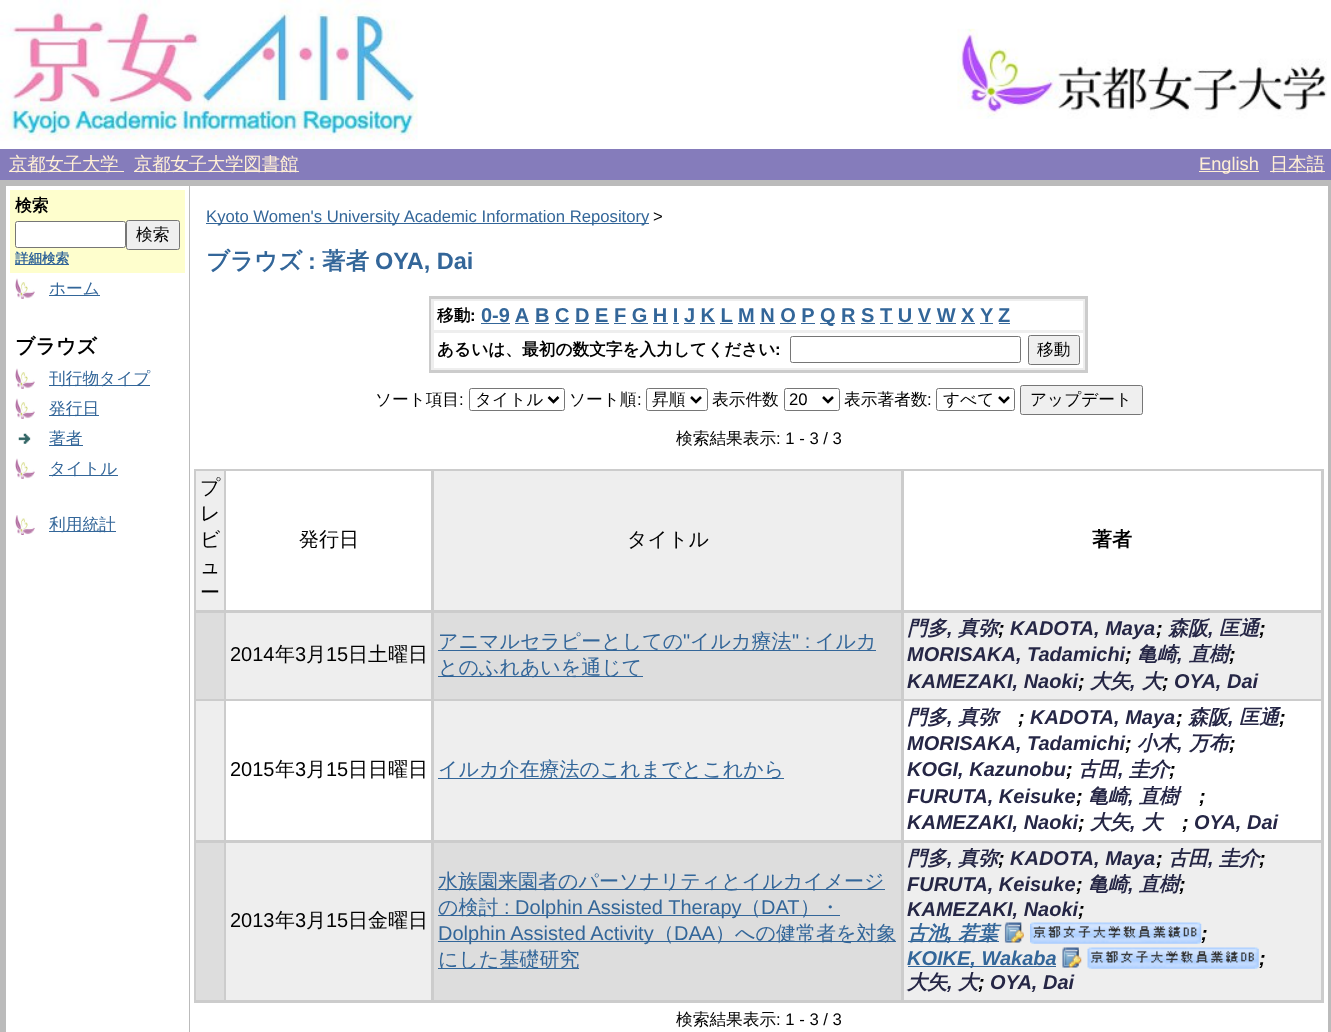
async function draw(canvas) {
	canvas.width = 1331;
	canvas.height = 1032;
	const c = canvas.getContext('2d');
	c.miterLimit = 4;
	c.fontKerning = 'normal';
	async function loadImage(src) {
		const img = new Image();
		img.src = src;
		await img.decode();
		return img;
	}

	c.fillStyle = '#bbb';
	c.fillRect(0, 0, 1331, 1032);
	c.fillStyle = '#fff';
	c.fillRect(0, 0, 1331, 149);
	c.drawImage(await loadImage('img1.png'), 0, 0, 418, 141);
	c.drawImage(await loadImage('img2.png'), 957, 28, 370, 91);
	c.fillStyle = '#857cbb';
	c.fillRect(0, 149, 1331, 31);
	c.fillStyle = '#ffefd5';
	c.fillRect(9, 171, 115, 1);
	c.font = '500 18.25px WenQuanYi Zen Hei';
	c.fillText('京都女子大学', 9, 170);
	c.fillRect(134, 171, 165, 1);
	c.fillText('京都女子大学図書館', 134, 170);
	c.fillRect(1199, 171, 60, 1);
	c.font = '18.25px Liberation Sans';
	c.fillText('English', 1199, 170);
	c.fillRect(1270, 171, 55, 1);
	c.font = '500 18.25px WenQuanYi Zen Hei';
	c.fillText('日本語', 1270, 170);
	c.fillStyle = '#fff';
	c.fillRect(6, 186, 183, 846);
	c.fillStyle = '#fefecd';
	c.fillRect(10, 190, 175, 83);
	c.font = 'bold 16.7px WenQuanYi Zen Hei';
	c.fillStyle = '#000';
	c.fillText('検索', 15, 211);
	c.fillStyle = '#fff';
	c.beginPath();
	c.roundRect(15.5, 221.5, 110, 26, 2);
	c.fill();
	c.strokeStyle = '#767676';
	c.stroke();
	c.fillStyle = '#efefef';
	c.beginPath();
	c.roundRect(126.5, 220.5, 53, 29, 2);
	c.fill();
	c.stroke();
	c.font = '500 16.7px WenQuanYi Zen Hei';
	c.fillStyle = '#000';
	c.fillText('検索', 136, 240);
	c.fillStyle = '#369';
	c.fillRect(15, 264, 54, 1);
	c.font = 'bold 13.5px WenQuanYi Zen Hei';
	c.fillText('詳細検索', 15, 263);
	c.drawImage(await loadImage('img3.png'), 15, 278, 20, 21);
	c.fillRect(49, 295, 51, 1);
	c.font = '500 16.7px WenQuanYi Zen Hei';
	c.fillText('ホーム', 49, 294);
	c.font = 'bold 20px WenQuanYi Zen Hei';
	c.fillStyle = '#000';
	c.fillText('ブラウズ', 15, 353);
	c.drawImage(await loadImage('img3.png'), 15, 368, 20, 21);
	c.fillStyle = '#369';
	c.fillRect(49, 385, 101, 1);
	c.font = '500 16.7px WenQuanYi Zen Hei';
	c.fillText('刊行物タイプ', 49, 384);
	c.drawImage(await loadImage('img4.png'), 15, 398, 20, 21);
	c.fillRect(49, 415, 50, 1);
	c.fillText('発行日', 49, 414);
	c.drawImage(await loadImage('img5.png'), 18, 433, 13, 11);
	c.fillRect(49, 445, 34, 1);
	c.fillText('著者', 49, 444);
	c.drawImage(await loadImage('img3.png'), 15, 458, 20, 21);
	c.fillRect(49, 475, 69, 1);
	c.fillText('タイトル', 49, 474);
	c.drawImage(await loadImage('img6.png'), 15, 515, 20, 20);
	c.fillRect(49, 531, 67, 1);
	c.fillText('利用統計', 49, 530);
	c.fillStyle = '#fff';
	c.fillRect(190, 186, 1138, 846);
	c.fillStyle = '#369';
	c.fillRect(206, 223, 443, 1);
	c.font = '16.7px Liberation Sans';
	c.fillText('Kyoto Women\'s University Academic Information Repository', 206, 222);
	c.fillStyle = '#000';
	c.fillText('>', 653, 222);
	c.font = 'bold 23.5px WenQuanYi Zen Hei';
	c.fillStyle = '#369';
	c.fillText('ブラウズ', 206, 269);
	c.font = 'bold 23.5px Liberation Sans';
	c.fillText(':', 308, 269);
	c.font = 'bold 23.5px WenQuanYi Zen Hei';
	c.fillText('著者', 322, 269);
	c.font = 'bold 23.5px Liberation Sans';
	c.fillText('OYA, Dai', 375, 269);
	for (const [x, y, w, h, color] of [
		[429, 296, 659, 77, '#ccc'],
		[431, 299, 654, 71, '#eee'],
		[434, 301, 649, 29, '#fff'],
	]) {
		c.fillStyle = color;
		c.fillRect(x, y, w, h);
	}
	c.font = 'bold 16.7px WenQuanYi Zen Hei';
	c.fillStyle = '#000';
	c.fillText('移動', 437, 321);
	c.font = 'bold 16.7px Liberation Sans';
	c.fillText(':', 470, 321);
	c.font = 'bold 20px Liberation Sans';
	c.fillStyle = '#369';
	c.fillText('0-9 A', 481, 322);
	c.fillRect(481, 323, 29, 1);
	c.fillText('B C D E F G H I J K L', 535, 322);
	c.fillRect(535, 323, 14, 1);
	c.fillText('M N O P', 738, 322);
	c.fillRect(738, 323, 17, 1);
	c.fillRect(820, 323, 15, 1);
	c.fillText('Q R S T U V W X', 820, 322);
	c.fillText('Y', 980, 322);
	c.fillRect(980, 323, 13, 1);
	c.fillText('Z', 998, 322);
	for (const [x, y, w, h, color] of [
		[999, 323, 11, 1, '#369'],
		[515, 323, 14, 1, '#369'],
		[555, 323, 14, 1, '#369'],
		[575, 323, 14, 1, '#369'],
		[595, 323, 14, 1, '#369'],
		[614, 323, 12, 1, '#369'],
		[631, 323, 17, 1, '#369'],
		[653, 323, 15, 1, '#369'],
		[673, 323, 6, 1, '#369'],
		[684, 323, 11, 1, '#369'],
		[700, 323, 15, 1, '#369'],
		[720, 323, 13, 1, '#369'],
		[760, 323, 15, 1, '#369'],
		[780, 323, 16, 1, '#369'],
		[801, 323, 14, 1, '#369'],
		[841, 323, 14, 1, '#369'],
		[861, 323, 14, 1, '#369'],
		[880, 323, 13, 1, '#369'],
		[898, 323, 15, 1, '#369'],
		[918, 323, 13, 1, '#369'],
		[936, 323, 20, 1, '#369'],
		[961, 323, 14, 1, '#369'],
		[434, 333, 649, 35, '#fff'],
	]) {
		c.fillStyle = color;
		c.fillRect(x, y, w, h);
	}
	c.font = 'bold 16.7px WenQuanYi Zen Hei';
	c.fillStyle = '#000';
	c.fillText('あるいは、最初の数文字を入力してください', 437, 355);
	c.font = 'bold 16.7px Liberation Sans';
	c.fillText(':', 775, 355);
	c.beginPath();
	c.roundRect(790.5, 336.5, 230, 26, 2);
	c.stroke();
	c.fillStyle = '#efefef';
	c.beginPath();
	c.roundRect(1028.5, 335.5, 51, 29, 2);
	c.fill();
	c.stroke();
	c.font = '500 16.7px WenQuanYi Zen Hei';
	c.fillStyle = '#000';
	c.fillText('移動', 1037, 355);
	c.fillText('ソート項目', 375, 405);
	c.font = '16.7px Liberation Sans';
	c.fillText(':', 459, 405);
	c.beginPath();
	c.roundRect(469.5, 388.5, 95, 22, 2);
	c.stroke();
	c.beginPath();
	c.moveTo(548.5, 397);
	c.lineTo(553.5, 402);
	c.lineTo(558.5, 397);
	c.strokeStyle = '#000';
	c.lineWidth = 2.5;
	c.stroke();
	c.font = '500 16.7px WenQuanYi Zen Hei';
	c.fillText('タイトル', 475, 405);
	c.fillText('ソート順', 569, 405);
	c.font = '16.7px Liberation Sans';
	c.fillText(':', 637, 405);
	c.beginPath();
	c.roundRect(646.5, 388.5, 61, 22, 2);
	c.strokeStyle = '#767676';
	c.lineWidth = 1;
	c.stroke();
	c.beginPath();
	c.moveTo(691, 397);
	c.lineTo(696, 402);
	c.lineTo(701, 397);
	c.strokeStyle = '#000';
	c.lineWidth = 2.5;
	c.stroke();
	c.font = '500 16.7px WenQuanYi Zen Hei';
	c.fillText('昇順', 652, 405);
	c.fillText('表示件数', 712, 405);
	c.beginPath();
	c.roundRect(784.5, 388.5, 55, 22, 2);
	c.strokeStyle = '#767676';
	c.lineWidth = 1;
	c.stroke();
	c.beginPath();
	c.moveTo(823, 397);
	c.lineTo(828, 402);
	c.lineTo(833, 397);
	c.strokeStyle = '#000';
	c.lineWidth = 2.5;
	c.stroke();
	c.font = '16.7px Liberation Sans';
	c.fillText('20', 789, 405);
	c.font = '500 16.7px WenQuanYi Zen Hei';
	c.fillText('表示著者数', 844, 405);
	c.font = '16.7px Liberation Sans';
	c.fillText(':', 927, 405);
	c.beginPath();
	c.roundRect(936.5, 388.5, 78, 22, 2);
	c.strokeStyle = '#767676';
	c.lineWidth = 1;
	c.stroke();
	c.beginPath();
	c.moveTo(999, 397);
	c.lineTo(1004, 402);
	c.lineTo(1009, 397);
	c.strokeStyle = '#000';
	c.lineWidth = 2.5;
	c.stroke();
	c.font = '500 16.7px WenQuanYi Zen Hei';
	c.fillText('すべて', 943, 405);
	c.fillStyle = '#efefef';
	c.beginPath();
	c.roundRect(1020.5, 385.5, 122, 29, 2);
	c.fill();
	c.strokeStyle = '#767676';
	c.lineWidth = 1;
	c.stroke();
	c.fillStyle = '#000';
	c.fillText('アップデート', 1030, 405);
	c.fillText('検索結果表示', 676, 444);
	c.font = '16.7px Liberation Sans';
	c.fillText(': 1 - 3 / 3', 776, 444);
	c.fillStyle = '#ccc';
	c.fillRect(194, 469, 1130, 534);
	c.fillStyle = '#eee';
	c.fillRect(196, 471, 28, 139);
	c.font = '500 20px WenQuanYi Zen Hei';
	c.fillStyle = '#000';
	for (const [text, x, y] of [
		['プ', 200, 494],
		['レ', 200, 520],
		['ビ', 200, 546],
		['ュ', 200, 573],
		['ー', 200, 599],
	]) {
		c.fillText(text, x, y);
	}
	c.fillStyle = '#fff';
	c.fillRect(226, 471, 205, 139);
	c.fillStyle = '#000';
	c.fillText('発行日', 299, 546);
	c.fillStyle = '#eee';
	c.fillRect(434, 471, 467, 139);
	c.fillStyle = '#000';
	c.fillText('タイトル', 627, 546);
	c.fillStyle = '#fff';
	c.fillRect(904, 471, 417, 139);
	c.font = 'bold 20px WenQuanYi Zen Hei';
	c.fillStyle = '#000';
	c.fillText('著者', 1092, 546);
	c.fillStyle = '#ddd';
	c.fillRect(196, 613, 28, 86);
	c.fillStyle = '#eee';
	c.fillRect(226, 613, 205, 86);
	c.font = '20px Liberation Sans';
	c.fillStyle = '#000';
	c.fillText('2014', 230, 661);
	c.font = '500 20px WenQuanYi Zen Hei';
	c.fillText('年', 275, 661);
	c.font = '20px Liberation Sans';
	c.fillText('3', 295, 661);
	c.font = '500 20px WenQuanYi Zen Hei';
	c.fillText('月', 306, 661);
	c.font = '20px Liberation Sans';
	c.fillText('15', 326, 661);
	c.font = '500 20px WenQuanYi Zen Hei';
	c.fillText('日土曜日', 348, 661);
	c.fillStyle = '#ddd';
	c.fillRect(434, 613, 467, 86);
	c.fillStyle = '#369';
	c.fillRect(438, 650, 438, 1);
	c.fillText('アニマルセラピーとしての', 438, 648);
	c.font = '20px Liberation Sans';
	c.fillText('"', 683, 648);
	c.font = '500 20px WenQuanYi Zen Hei';
	c.fillText('イルカ療法', 690, 648);
	c.font = '20px Liberation Sans';
	c.fillText('" :', 792, 648);
	c.font = '500 20px WenQuanYi Zen Hei';
	c.fillText('イルカ', 815, 648);
	c.fillRect(438, 676, 205, 1);
	c.fillText('とのふれあいを通じて', 438, 674);
	c.fillStyle = '#eee';
	c.fillRect(904, 613, 417, 86);
	c.font = 'italic bold 20px WenQuanYi Zen Hei';
	c.fillStyle = '#252645';
	c.fillText('門多', 907, 635);
	c.fillText('真弥', 958, 635);
	c.font = 'italic bold 20px Liberation Sans';
	c.fillText('KADOTA, Maya', 1010, 635);
	c.font = 'italic bold 20px WenQuanYi Zen Hei';
	c.fillText('森阪', 1168, 635);
	c.fillText('匡通', 1219, 635);
	c.font = 'italic bold 20px Liberation Sans';
	c.fillText(',', 947, 635);
	c.fillStyle = '#000';
	c.fillText(';', 998, 635);
	c.fillText(';', 1156, 635);
	c.fillStyle = '#252645';
	c.fillText(',', 1208, 635);
	c.fillStyle = '#000';
	c.fillText(';', 1259, 635);
	c.fillStyle = '#252645';
	c.fillText('MORISAKA, Tadamichi', 907, 661);
	c.fillStyle = '#000';
	c.fillText(';', 1125, 661);
	c.font = 'italic bold 20px WenQuanYi Zen Hei';
	c.fillStyle = '#252645';
	c.fillText('亀崎', 1137, 661);
	c.fillText('直樹', 1189, 661);
	c.font = 'italic bold 20px Liberation Sans';
	c.fillStyle = '#000';
	c.fillText(';', 1229, 661);
	c.fillStyle = '#252645';
	c.fillText(',', 1177, 661);
	c.fillText('KAMEZAKI, Naoki', 907, 688);
	c.fillStyle = '#000';
	c.fillText(';', 1078, 688);
	c.font = 'italic bold 20px WenQuanYi Zen Hei';
	c.fillStyle = '#252645';
	c.fillText('大矢', 1090, 688);
	c.font = 'italic bold 20px Liberation Sans';
	c.fillText(',', 1130, 688);
	c.font = 'italic bold 20px WenQuanYi Zen Hei';
	c.fillText('大', 1142, 688);
	c.font = 'italic bold 20px Liberation Sans';
	c.fillStyle = '#000';
	c.fillText(';', 1162, 688);
	c.fillStyle = '#252645';
	c.fillText('OYA, Dai', 1174, 688);
	c.fillStyle = '#eee';
	c.fillRect(196, 701, 28, 139);
	c.fillStyle = '#fff';
	c.fillRect(226, 701, 205, 139);
	c.font = '20px Liberation Sans';
	c.fillStyle = '#000';
	c.fillText('2015', 230, 776);
	c.font = '500 20px WenQuanYi Zen Hei';
	c.fillText('年', 275, 776);
	c.font = '20px Liberation Sans';
	c.fillText('3', 295, 776);
	c.font = '500 20px WenQuanYi Zen Hei';
	c.fillText('月', 306, 776);
	c.font = '20px Liberation Sans';
	c.fillText('15', 326, 776);
	c.font = '500 20px WenQuanYi Zen Hei';
	c.fillText('日日曜日', 348, 776);
	c.fillStyle = '#eee';
	c.fillRect(434, 701, 467, 139);
	c.fillStyle = '#369';
	c.fillRect(438, 778, 346, 1);
	c.fillText('イルカ介在療法のこれまでとこれから', 438, 776);
	c.fillStyle = '#fff';
	c.fillRect(904, 701, 417, 139);
	c.font = 'italic bold 20px WenQuanYi Zen Hei';
	c.fillStyle = '#252645';
	c.fillText('門多', 907, 724);
	c.font = 'italic bold 20px Liberation Sans';
	c.fillText(',', 947, 724);
	c.font = 'italic bold 20px WenQuanYi Zen Hei';
	c.fillText('真弥', 958, 724);
	c.font = 'italic bold 20px Liberation Sans';
	c.fillStyle = '#000';
	c.fillText(';', 1018, 724);
	c.fillStyle = '#252645';
	c.fillText('KADOTA, Maya', 1030, 724);
	c.fillStyle = '#000';
	c.fillText(';', 1176, 724);
	c.font = 'italic bold 20px WenQuanYi Zen Hei';
	c.fillStyle = '#252645';
	c.fillText('森阪', 1188, 724);
	c.font = 'italic bold 20px Liberation Sans';
	c.fillText(',', 1228, 724);
	c.font = 'italic bold 20px WenQuanYi Zen Hei';
	c.fillText('匡通', 1239, 724);
	c.font = 'italic bold 20px Liberation Sans';
	c.fillStyle = '#000';
	c.fillText(';', 1279, 724);
	c.fillStyle = '#252645';
	c.fillText('MORISAKA, Tadamichi', 907, 750);
	c.fillStyle = '#000';
	c.fillText(';', 1125, 750);
	c.font = 'italic bold 20px WenQuanYi Zen Hei';
	c.fillStyle = '#252645';
	c.fillText('小木', 1137, 750);
	c.font = 'italic bold 20px Liberation Sans';
	c.fillText(',', 1177, 750);
	c.font = 'italic bold 20px WenQuanYi Zen Hei';
	c.fillText('万布', 1189, 750);
	c.font = 'italic bold 20px Liberation Sans';
	c.fillStyle = '#000';
	c.fillText(';', 1229, 750);
	c.fillStyle = '#252645';
	c.fillText('KOGI, Kazunobu', 907, 776);
	c.fillStyle = '#000';
	c.fillText(';', 1066, 776);
	c.font = 'italic bold 20px WenQuanYi Zen Hei';
	c.fillStyle = '#252645';
	c.fillText('古田', 1078, 776);
	c.font = 'italic bold 20px Liberation Sans';
	c.fillText(',', 1118, 776);
	c.font = 'italic bold 20px WenQuanYi Zen Hei';
	c.fillText('圭介', 1129, 776);
	c.font = 'italic bold 20px Liberation Sans';
	c.fillStyle = '#000';
	c.fillText(';', 1169, 776);
	c.fillStyle = '#252645';
	c.fillText('FURUTA, Keisuke', 907, 803);
	c.fillStyle = '#000';
	c.fillText(';', 1076, 803);
	c.font = 'italic bold 20px WenQuanYi Zen Hei';
	c.fillStyle = '#252645';
	c.fillText('亀崎', 1088, 803);
	c.fillText('直樹', 1139, 803);
	c.font = 'italic bold 20px Liberation Sans';
	c.fillStyle = '#000';
	c.fillText(';', 1199, 803);
	c.fillStyle = '#252645';
	c.fillText(',', 1128, 803);
	c.fillText('KAMEZAKI, Naoki', 907, 829);
	c.fillStyle = '#000';
	c.fillText(';', 1078, 829);
	c.font = 'italic bold 20px WenQuanYi Zen Hei';
	c.fillStyle = '#252645';
	c.fillText('大矢', 1090, 829);
	c.font = 'italic bold 20px Liberation Sans';
	c.fillText(',', 1130, 829);
	c.font = 'italic bold 20px WenQuanYi Zen Hei';
	c.fillText('大', 1142, 829);
	c.font = 'italic bold 20px Liberation Sans';
	c.fillStyle = '#000';
	c.fillText(';', 1182, 829);
	c.fillStyle = '#252645';
	c.fillText('OYA, Dai', 1194, 829);
	c.fillStyle = '#ddd';
	c.fillRect(196, 843, 28, 157);
	c.fillStyle = '#eee';
	c.fillRect(226, 843, 205, 157);
	c.font = '20px Liberation Sans';
	c.fillStyle = '#000';
	c.fillText('2013', 230, 927);
	c.font = '500 20px WenQuanYi Zen Hei';
	c.fillText('年', 275, 927);
	c.font = '20px Liberation Sans';
	c.fillText('3', 295, 927);
	c.font = '500 20px WenQuanYi Zen Hei';
	c.fillText('月', 306, 927);
	c.font = '20px Liberation Sans';
	c.fillText('15', 326, 927);
	c.font = '500 20px WenQuanYi Zen Hei';
	c.fillText('日金曜日', 348, 927);
	c.fillStyle = '#ddd';
	c.fillRect(434, 843, 467, 157);
	c.fillStyle = '#369';
	c.fillRect(438, 889, 447, 1);
	c.fillText('水族園来園者のパーソナリティとイルカイメージ', 438, 888);
	c.fillRect(438, 915, 402, 1);
	c.fillText('の検討', 438, 914);
	c.font = '20px Liberation Sans';
	c.fillText(': Dolphin Assisted Therapy', 504, 914);
	c.font = '500 20px WenQuanYi Zen Hei';
	c.fillText('（', 741, 914);
	c.font = '20px Liberation Sans';
	c.fillText('DAT', 761, 914);
	c.font = '500 20px WenQuanYi Zen Hei';
	c.fillText('）・', 800, 914);
	c.fillRect(438, 941, 458, 1);
	c.font = '20px Liberation Sans';
	c.fillText('Dolphin Assisted Activity', 438, 940);
	c.font = '500 20px WenQuanYi Zen Hei';
	c.fillText('（', 654, 940);
	c.font = '20px Liberation Sans';
	c.fillText('DAA', 674, 940);
	c.font = '500 20px WenQuanYi Zen Hei';
	c.fillText('）への健常者を対象', 715, 940);
	c.fillRect(438, 968, 141, 1);
	c.fillText('にした基礎研究', 438, 966);
	c.fillStyle = '#eee';
	c.fillRect(904, 843, 417, 157);
	c.font = 'italic bold 20px WenQuanYi Zen Hei';
	c.fillStyle = '#252645';
	c.fillText('門多', 907, 865);
	c.fillText('真弥', 958, 865);
	c.font = 'italic bold 20px Liberation Sans';
	c.fillText('KADOTA, Maya', 1010, 865);
	c.font = 'italic bold 20px WenQuanYi Zen Hei';
	c.fillText('古田', 1168, 865);
	c.fillText('圭介', 1219, 865);
	c.font = 'italic bold 20px Liberation Sans';
	c.fillText(',', 947, 865);
	c.fillStyle = '#000';
	c.fillText(';', 998, 865);
	c.fillText(';', 1156, 865);
	c.fillStyle = '#252645';
	c.fillText(',', 1208, 865);
	c.fillStyle = '#000';
	c.fillText(';', 1259, 865);
	c.fillStyle = '#252645';
	c.fillText('FURUTA, Keisuke', 907, 891);
	c.fillStyle = '#000';
	c.fillText(';', 1076, 891);
	c.font = 'italic bold 20px WenQuanYi Zen Hei';
	c.fillStyle = '#252645';
	c.fillText('亀崎', 1088, 891);
	c.fillText('直樹', 1139, 891);
	c.font = 'italic bold 20px Liberation Sans';
	c.fillText(',', 1128, 891);
	c.fillStyle = '#000';
	c.fillText(';', 1179, 891);
	c.fillStyle = '#252645';
	c.fillText('KAMEZAKI, Naoki', 907, 916);
	c.fillStyle = '#000';
	c.fillText(';', 1078, 916);
	c.fillStyle = '#369';
	c.fillRect(908, 941, 91, 1);
	c.font = 'italic bold 20px WenQuanYi Zen Hei';
	c.fillText('古池', 907, 940);
	c.fillText('若葉', 958, 940);
	c.drawImage(await loadImage('img7.png'), 1004, 922, 20, 21);
	c.drawImage(await loadImage('img8.png'), 1030, 922, 172, 22);
	c.font = 'italic bold 20px Liberation Sans';
	c.fillStyle = '#000';
	c.fillText(';', 1201, 940);
	c.fillStyle = '#369';
	c.fillText(',', 947, 940);
	c.fillRect(908, 966, 148, 1);
	c.fillText('KOIKE, Wakaba', 907, 965);
	c.drawImage(await loadImage('img9.png'), 1062, 947, 20, 21);
	c.drawImage(await loadImage('img10.png'), 1087, 947, 172, 22);
	c.fillStyle = '#000';
	c.fillText(';', 1259, 965);
	c.font = 'italic bold 20px WenQuanYi Zen Hei';
	c.fillStyle = '#252645';
	c.fillText('大矢', 907, 989);
	c.font = 'italic bold 20px Liberation Sans';
	c.fillText(',', 947, 989);
	c.font = 'italic bold 20px WenQuanYi Zen Hei';
	c.fillText('大', 958, 989);
	c.font = 'italic bold 20px Liberation Sans';
	c.fillStyle = '#000';
	c.fillText(';', 978, 989);
	c.fillStyle = '#252645';
	c.fillText('OYA, Dai', 990, 989);
	c.font = '500 16.7px WenQuanYi Zen Hei';
	c.fillStyle = '#000';
	c.fillText('検索結果表示', 676, 1025);
	c.font = '16.7px Liberation Sans';
	c.fillText(': 1 - 3 / 3', 776, 1025);
}

draw(document.querySelector('canvas'));
